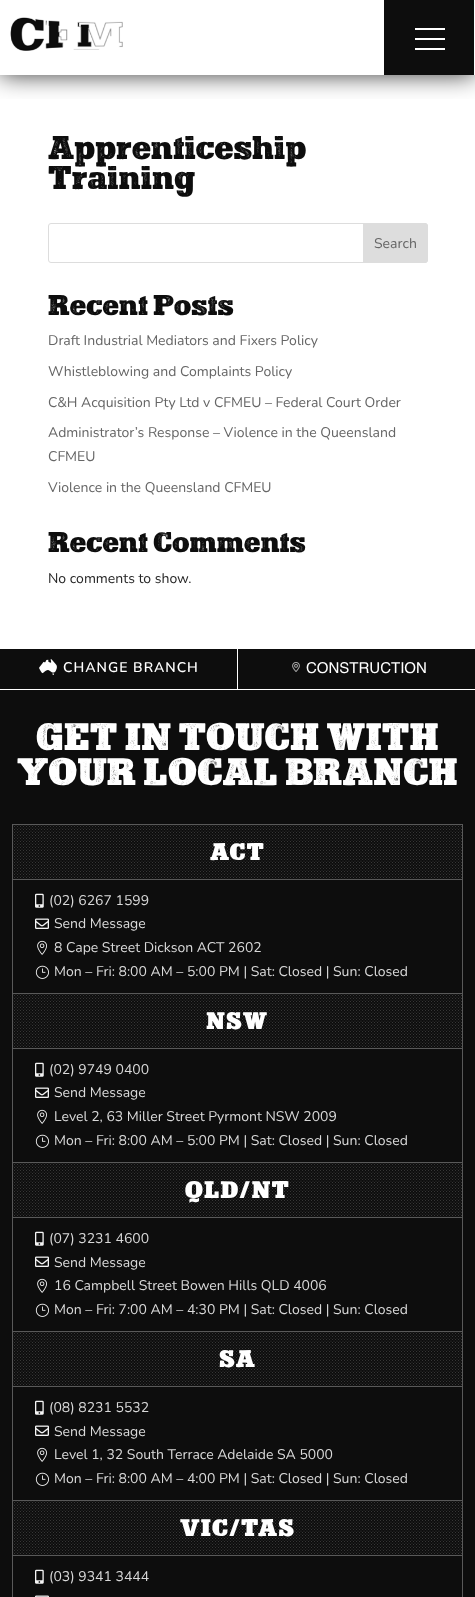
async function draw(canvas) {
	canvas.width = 475;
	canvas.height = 1597;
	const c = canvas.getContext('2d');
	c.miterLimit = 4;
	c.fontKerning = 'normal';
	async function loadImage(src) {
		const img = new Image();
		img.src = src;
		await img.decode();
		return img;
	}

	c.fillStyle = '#fff';
	c.fillRect(0, 0, 475, 1597);
	c.save();
	c.beginPath();
	c.rect(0, 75, 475, 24);
	c.clip();
	c.fillStyle = '#000000c7';
	c.filter = 'blur(12.5px)';
	c.beginPath();
	c.rect(0, 0, 475, 75);
	c.fill();
	c.filter = 'none';
	c.restore();
	c.drawImage(await loadImage('img1.png'), 10, 17, 113, 34);
	for (const [x, y, w, h, color] of [
		[384, 0, 90, 75, '#0d0d0d'],
		[415, 38, 30, 2, '#fff'],
		[415, 28, 30, 2, '#fff'],
		[415, 48, 30, 2, '#fff'],
	]) {
		c.fillStyle = color;
		c.fillRect(x, y, w, h);
	}
	c.font = '30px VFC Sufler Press';
	c.fillStyle = '#0d0d0d';
	c.fillText('Apprenticeship', 48, 159);
	c.fillText('Training', 48, 189);
	c.beginPath();
	c.roundRect(48.5, 223.5, 379, 39, 2.5);
	c.strokeStyle = '#ddd';
	c.stroke();
	c.fillStyle = '#ddd';
	c.beginPath();
	c.roundRect(363.5, 223.5, 64, 39, [0, 2.5, 2.5, 0]);
	c.fill();
	c.stroke();
	c.font = '200 14px Nunito';
	c.fillStyle = '#666';
	c.fillText('Search', 374, 248);
	c.font = '26px VFC Sufler Press';
	c.fillStyle = '#0d0d0d';
	c.fillText('Recent Posts', 48, 315);
	c.font = '200 14px Nunito';
	c.fillStyle = '#666';
	for (const [text, x, y] of [
		['Draft Industrial Mediators and Fixers Policy', 48, 345],
		['Whistleblowing and Complaints Policy', 48, 376],
		['C&H Acquisition Pty Ltd v CFMEU – Federal Court Order', 48, 407],
		['Administrator’s Response – Violence in the Queensland', 48, 437],
		['CFMEU', 48, 461],
		['Violence in the Queensland CFMEU', 48, 492],
	]) {
		c.fillText(text, x, y);
	}
	c.font = '26px VFC Sufler Press';
	c.fillStyle = '#0d0d0d';
	c.fillText('Recent Comments', 48, 552);
	c.font = '200 14px Nunito';
	c.fillStyle = '#262626';
	c.fillText('No comments to show.', 48, 583);
	c.fillStyle = '#0d0d0d';
	c.fillRect(0, 649, 475, 40);
	c.fillStyle = '#fff';
	c.fillRect(237, 649, 1, 40);
	c.drawImage(await loadImage('img2.png'), 39, 659, 18, 16);
	c.letterSpacing = '1px';
	c.font = '200 14px "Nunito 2"';
	c.fillText('CHANGE BRANCH', 63, 672);
	c.drawImage(await loadImage('img3.png'), 292, 662, 8, 10);
	c.letterSpacing = '0px';
	c.font = '15px Helvetica';
	c.fillText('CONSTRUCTION', 306, 673);
	c.fillStyle = '#0d0d0d';
	c.fillRect(0, 690, 475, 907);
	c.font = '35px VFC Sufler Press';
	c.fillStyle = '#fff';
	c.fillText('GET IN TOUCH WITH', 36, 750);
	c.fillText('YOUR LOCAL BRANCH', 17, 785);
	for (const [x, y, w, h, color] of [
		[12, 824, 451, 1, '#595959'],
		[12, 824, 1, 507, '#595959'],
		[462, 825, 1, 168, '#595959'],
		[13, 879, 449, 1, '#595959'],
	]) {
		c.fillStyle = color;
		c.fillRect(x, y, w, h);
	}
	c.drawImage(await loadImage('img4.png'), 13, 825, 449, 54);
	c.letterSpacing = '1px';
	c.font = '22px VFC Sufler';
	c.fillStyle = '#fff';
	c.fillText('ACT', 210, 860);
	c.drawImage(await loadImage('img5.png'), 35, 893, 9, 15);
	c.letterSpacing = '0px';
	c.font = '200 14px Nunito';
	c.fillStyle = '#d9d9d9';
	c.fillText('(02) 6267 1599', 49, 905);
	c.drawImage(await loadImage('img6.png'), 35, 918, 14, 11);
	c.fillText('Send Message', 54, 928);
	c.drawImage(await loadImage('img7.png'), 37, 940, 10, 15);
	c.fillText('8 Cape Street Dickson ACT 2602', 54, 952);
	c.drawImage(await loadImage('img8.png'), 35, 965, 14, 14);
	c.fillText('Mon – Fri: 8:00 AM – 5:00 PM | Sat: Closed | Sun: Closed', 54, 976);
	for (const [x, y, w, h, color] of [
		[13, 993, 450, 1, '#595959'],
		[462, 993, 1, 169, '#595959'],
		[13, 1048, 449, 1, '#595959'],
	]) {
		c.fillStyle = color;
		c.fillRect(x, y, w, h);
	}
	c.drawImage(await loadImage('img4.png'), 13, 994, 449, 54);
	c.letterSpacing = '1px';
	c.font = '22px VFC Sufler';
	c.fillStyle = '#fff';
	c.fillText('NSW', 206, 1029);
	c.drawImage(await loadImage('img5.png'), 35, 1062, 9, 15);
	c.letterSpacing = '0px';
	c.font = '200 14px Nunito';
	c.fillStyle = '#d9d9d9';
	c.fillText('(02) 9749 0400', 49, 1074);
	c.drawImage(await loadImage('img6.png'), 35, 1087, 14, 11);
	c.fillText('Send Message', 54, 1097);
	c.drawImage(await loadImage('img7.png'), 37, 1109, 10, 15);
	c.fillText('Level 2, 63 Miller Street Pyrmont NSW 2009', 54, 1121);
	c.drawImage(await loadImage('img8.png'), 35, 1134, 14, 14);
	c.fillText('Mon – Fri: 8:00 AM – 5:00 PM | Sat: Closed | Sun: Closed', 54, 1145);
	for (const [x, y, w, h, color] of [
		[13, 1162, 450, 1, '#595959'],
		[462, 1162, 1, 169, '#595959'],
		[13, 1217, 449, 1, '#595959'],
	]) {
		c.fillStyle = color;
		c.fillRect(x, y, w, h);
	}
	c.drawImage(await loadImage('img4.png'), 13, 1163, 449, 54);
	c.letterSpacing = '1px';
	c.font = '22px VFC Sufler';
	c.fillStyle = '#fff';
	c.fillText('QLD/NT', 185, 1198);
	c.drawImage(await loadImage('img5.png'), 35, 1231, 9, 15);
	c.letterSpacing = '0px';
	c.font = '200 14px Nunito';
	c.fillStyle = '#d9d9d9';
	c.fillText('(07) 3231 4600', 49, 1243);
	c.drawImage(await loadImage('img6.png'), 35, 1256, 14, 11);
	c.fillText('Send Message', 54, 1267);
	c.drawImage(await loadImage('img7.png'), 37, 1278, 10, 15);
	c.fillText('16 Campbell Street Bowen Hills QLD 4006', 54, 1290);
	c.drawImage(await loadImage('img8.png'), 35, 1303, 14, 14);
	c.fillText('Mon – Fri: 7:00 AM – 4:30 PM | Sat: Closed | Sun: Closed', 54, 1314);
	for (const [x, y, w, h, color] of [
		[12, 1331, 451, 1, '#595959'],
		[12, 1331, 1, 266, '#595959'],
		[462, 1332, 1, 168, '#595959'],
		[13, 1386, 449, 1, '#595959'],
	]) {
		c.fillStyle = color;
		c.fillRect(x, y, w, h);
	}
	c.drawImage(await loadImage('img4.png'), 13, 1332, 449, 54);
	c.letterSpacing = '1px';
	c.font = '22px VFC Sufler';
	c.fillStyle = '#fff';
	c.fillText('SA', 219, 1367);
	c.drawImage(await loadImage('img5.png'), 35, 1400, 9, 15);
	c.letterSpacing = '0px';
	c.font = '200 14px Nunito';
	c.fillStyle = '#d9d9d9';
	c.fillText('(08) 8231 5532', 49, 1412);
	c.drawImage(await loadImage('img6.png'), 35, 1425, 14, 11);
	c.fillText('Send Message', 54, 1436);
	c.drawImage(await loadImage('img7.png'), 37, 1447, 10, 15);
	c.fillText('Level 1, 32 South Terrace Adelaide SA 5000', 54, 1459);
	c.drawImage(await loadImage('img8.png'), 35, 1472, 14, 14);
	c.fillText('Mon – Fri: 8:00 AM – 4:00 PM | Sat: Closed | Sun: Closed', 54, 1483);
	for (const [x, y, w, h, color] of [
		[13, 1500, 450, 1, '#595959'],
		[462, 1500, 1, 97, '#595959'],
		[13, 1555, 449, 1, '#595959'],
	]) {
		c.fillStyle = color;
		c.fillRect(x, y, w, h);
	}
	c.drawImage(await loadImage('img4.png'), 13, 1501, 449, 54);
	c.letterSpacing = '1px';
	c.font = '22px VFC Sufler';
	c.fillStyle = '#fff';
	c.fillText('VIC/TAS', 180, 1536);
	c.drawImage(await loadImage('img5.png'), 35, 1569, 9, 15);
	c.letterSpacing = '0px';
	c.font = '200 14px Nunito';
	c.fillStyle = '#d9d9d9';
	c.fillText('(03) 9341 3444', 49, 1581);
	c.drawImage(await loadImage('img9.png'), 35, 1595, 14, 2);
}

draw(document.querySelector('canvas'));
